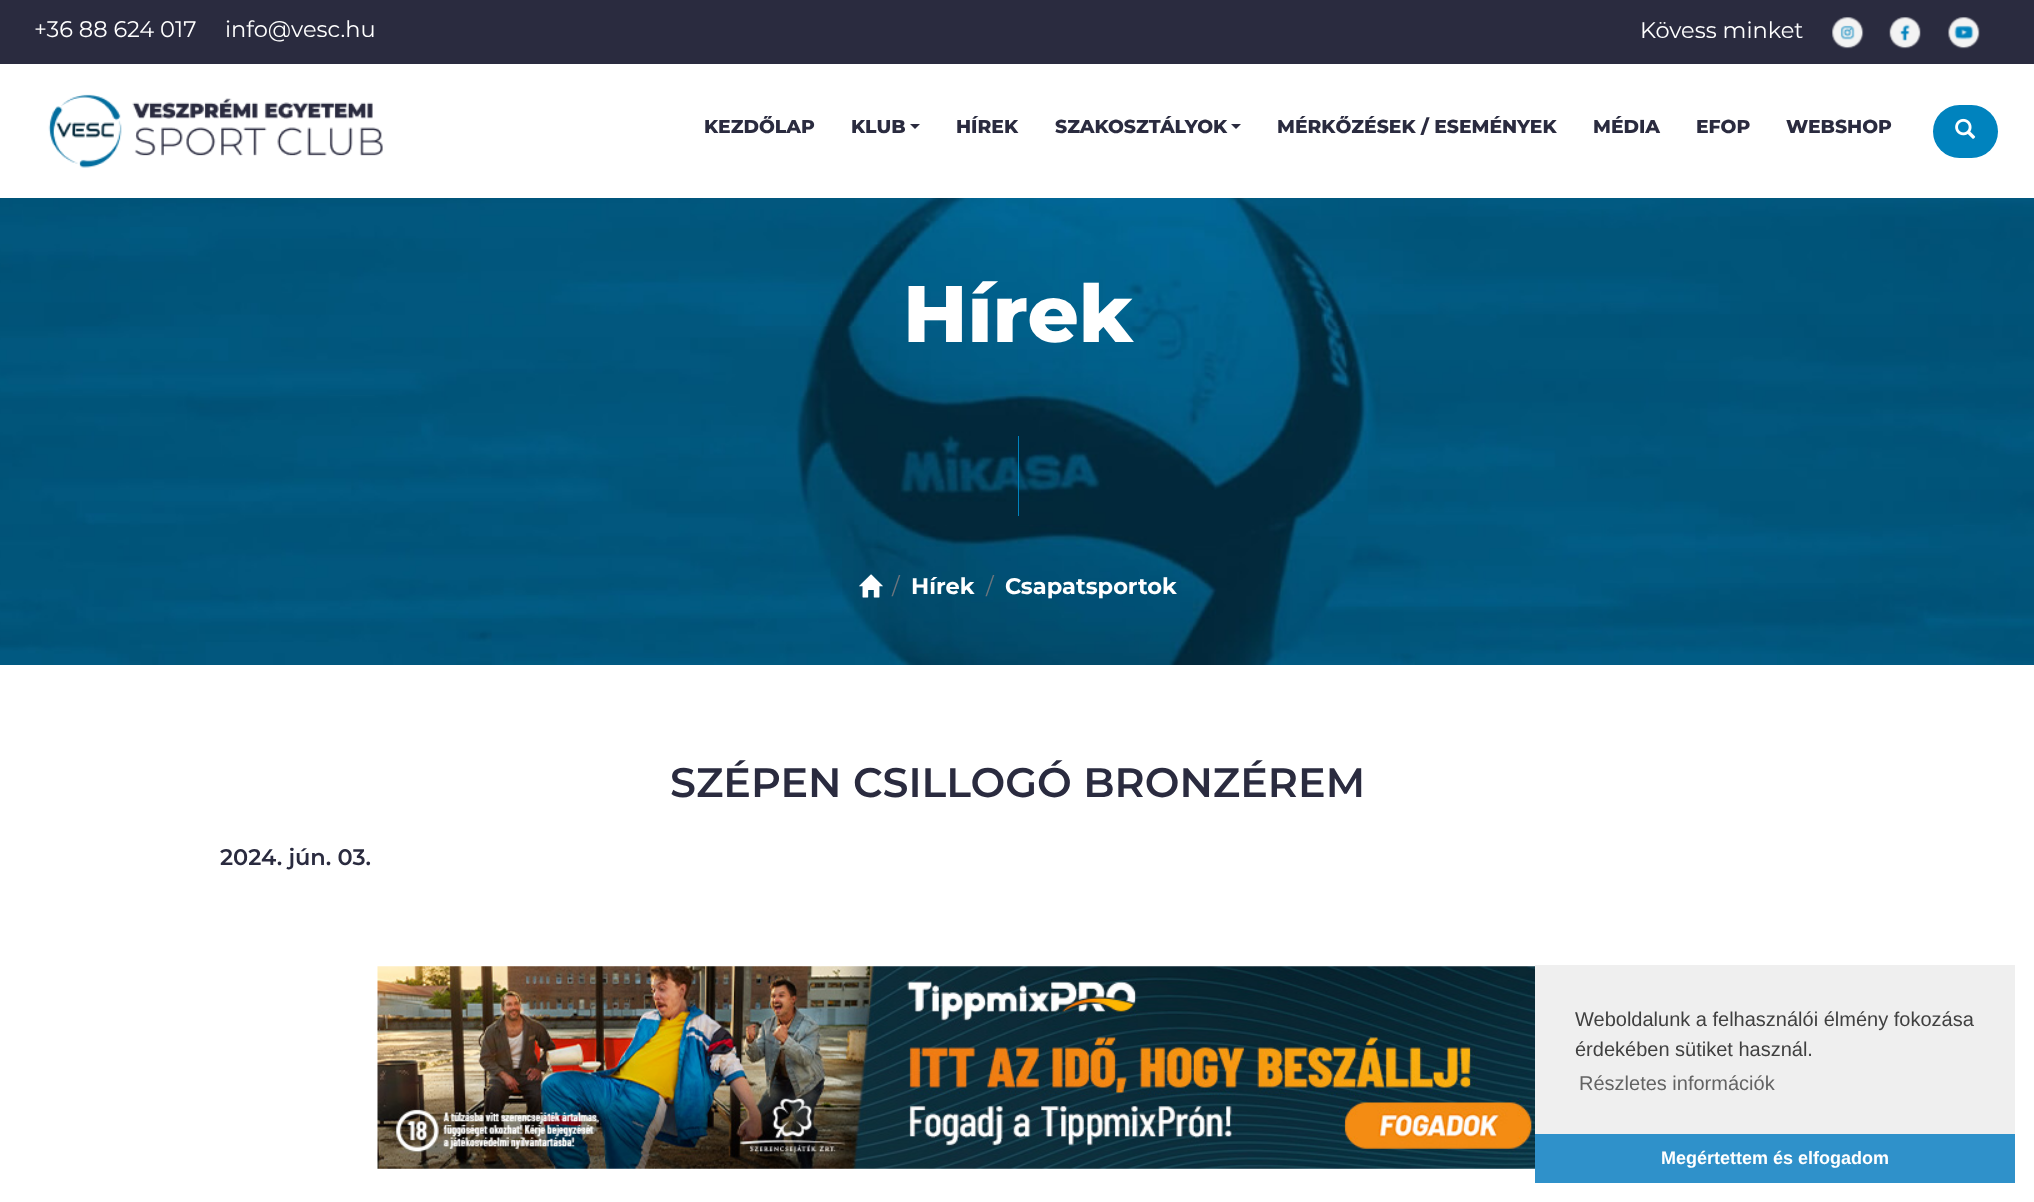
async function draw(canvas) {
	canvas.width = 2034;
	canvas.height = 1202;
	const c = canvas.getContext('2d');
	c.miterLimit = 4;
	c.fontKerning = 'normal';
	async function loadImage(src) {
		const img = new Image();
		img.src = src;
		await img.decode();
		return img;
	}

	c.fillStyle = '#fff';
	c.fillRect(0, 0, 2034, 1202);
	c.fillStyle = '#2a2b3f';
	c.fillRect(0, 0, 2034, 64);
	c.font = '22.5px Montserrat';
	c.fillStyle = '#fff';
	for (const [text, x, y] of [
		['+36 88 624 017', 34, 37],
		['info@vesc.hu', 225, 37],
		['Kövess minket', 1640, 38],
	]) {
		c.fillText(text, x, y);
	}
	c.drawImage(await loadImage('img1.png'), 1832, 17, 32, 32);
	c.drawImage(await loadImage('img2.png'), 1889, 17, 32, 32);
	c.drawImage(await loadImage('img3.png'), 1948, 17, 32, 32);
	c.drawImage(await loadImage('img4.png'), 48, 94, 335, 74);
	c.font = '800 18.75px Montserrat';
	c.fillStyle = '#2a2b3f';
	c.fillText('KEZDŐLAP', 704, 133);
	c.fillText('KLUB', 851, 133);
	c.beginPath();
	c.moveTo(910, 124);
	c.lineTo(920, 124);
	c.lineTo(915, 129);
	c.closePath();
	c.fill();
	c.fillText('HÍREK', 956, 133);
	c.fillText('SZAKOSZTÁLYOK', 1055, 133);
	c.beginPath();
	c.moveTo(1231, 124);
	c.lineTo(1241, 124);
	c.lineTo(1236, 129);
	c.closePath();
	c.fill();
	for (const [text, x, y] of [
		['MÉRKŐZÉSEK / ESEMÉNYEK', 1277, 133],
		['MÉDIA', 1593, 133],
		['EFOP', 1696, 133],
		['WEBSHOP', 1786, 133],
	]) {
		c.fillText(text, x, y);
	}
	c.fillStyle = '#0083be';
	c.beginPath();
	c.roundRect(1933, 105, 65, 53, 26.5);
	c.fill();
	c.drawImage(await loadImage('img5.png'), 1955, 118, 21, 21);
	c.drawImage(await loadImage('img6.png'), 0, 198, 2034, 467);
	c.font = '800 80px Montserrat';
	c.fillStyle = '#fff';
	c.fillText('Hírek', 903, 342);
	c.fillStyle = '#0083be';
	c.fillRect(1018, 436, 1, 80);
	c.drawImage(await loadImage('img7.png'), 859, 574, 24, 24);
	c.font = '22.5px Montserrat';
	c.fillStyle = '#6c757d';
	c.fillText('/', 892, 594);
	c.font = 'bold 22.5px Montserrat';
	c.fillStyle = '#fff';
	c.fillText('Hírek', 911, 594);
	c.font = '22.5px Montserrat';
	c.fillStyle = '#6c757d';
	c.fillText('/', 986, 594);
	c.font = 'bold 22.5px Montserrat';
	c.fillStyle = '#fff';
	c.fillText('Csapatsportok', 1005, 594);
	c.font = '600 41.25px Montserrat';
	c.fillStyle = '#2a2b3f';
	c.fillText('SZÉPEN CSILLOGÓ BRONZÉREM', 670, 797);
	c.font = '600 22.5px Montserrat';
	c.fillText('2024. jún. 03.', 220, 865);
	c.drawImage(await loadImage('img8.png'), 377, 966, 1158, 203);
	c.fillStyle = '#efefef';
	c.fillRect(1535, 965, 480, 169);
	c.font = '20px Liberation Sans';
	c.fillStyle = '#404040';
	c.fillText('Weboldalunk a felhasználói élmény fokozása', 1575, 1026);
	c.fillText('érdekében sütiket használ.', 1575, 1056);
	c.fillStyle = '#636363';
	c.fillText('Részletes információk', 1579, 1090);
	c.fillStyle = '#2f91ca';
	c.fillRect(1535, 1134, 480, 49);
	c.font = 'bold 18px Liberation Sans';
	c.fillStyle = '#fff';
	c.fillText('Megértettem és elfogadom', 1661, 1164);
}

draw(document.querySelector('canvas'));
